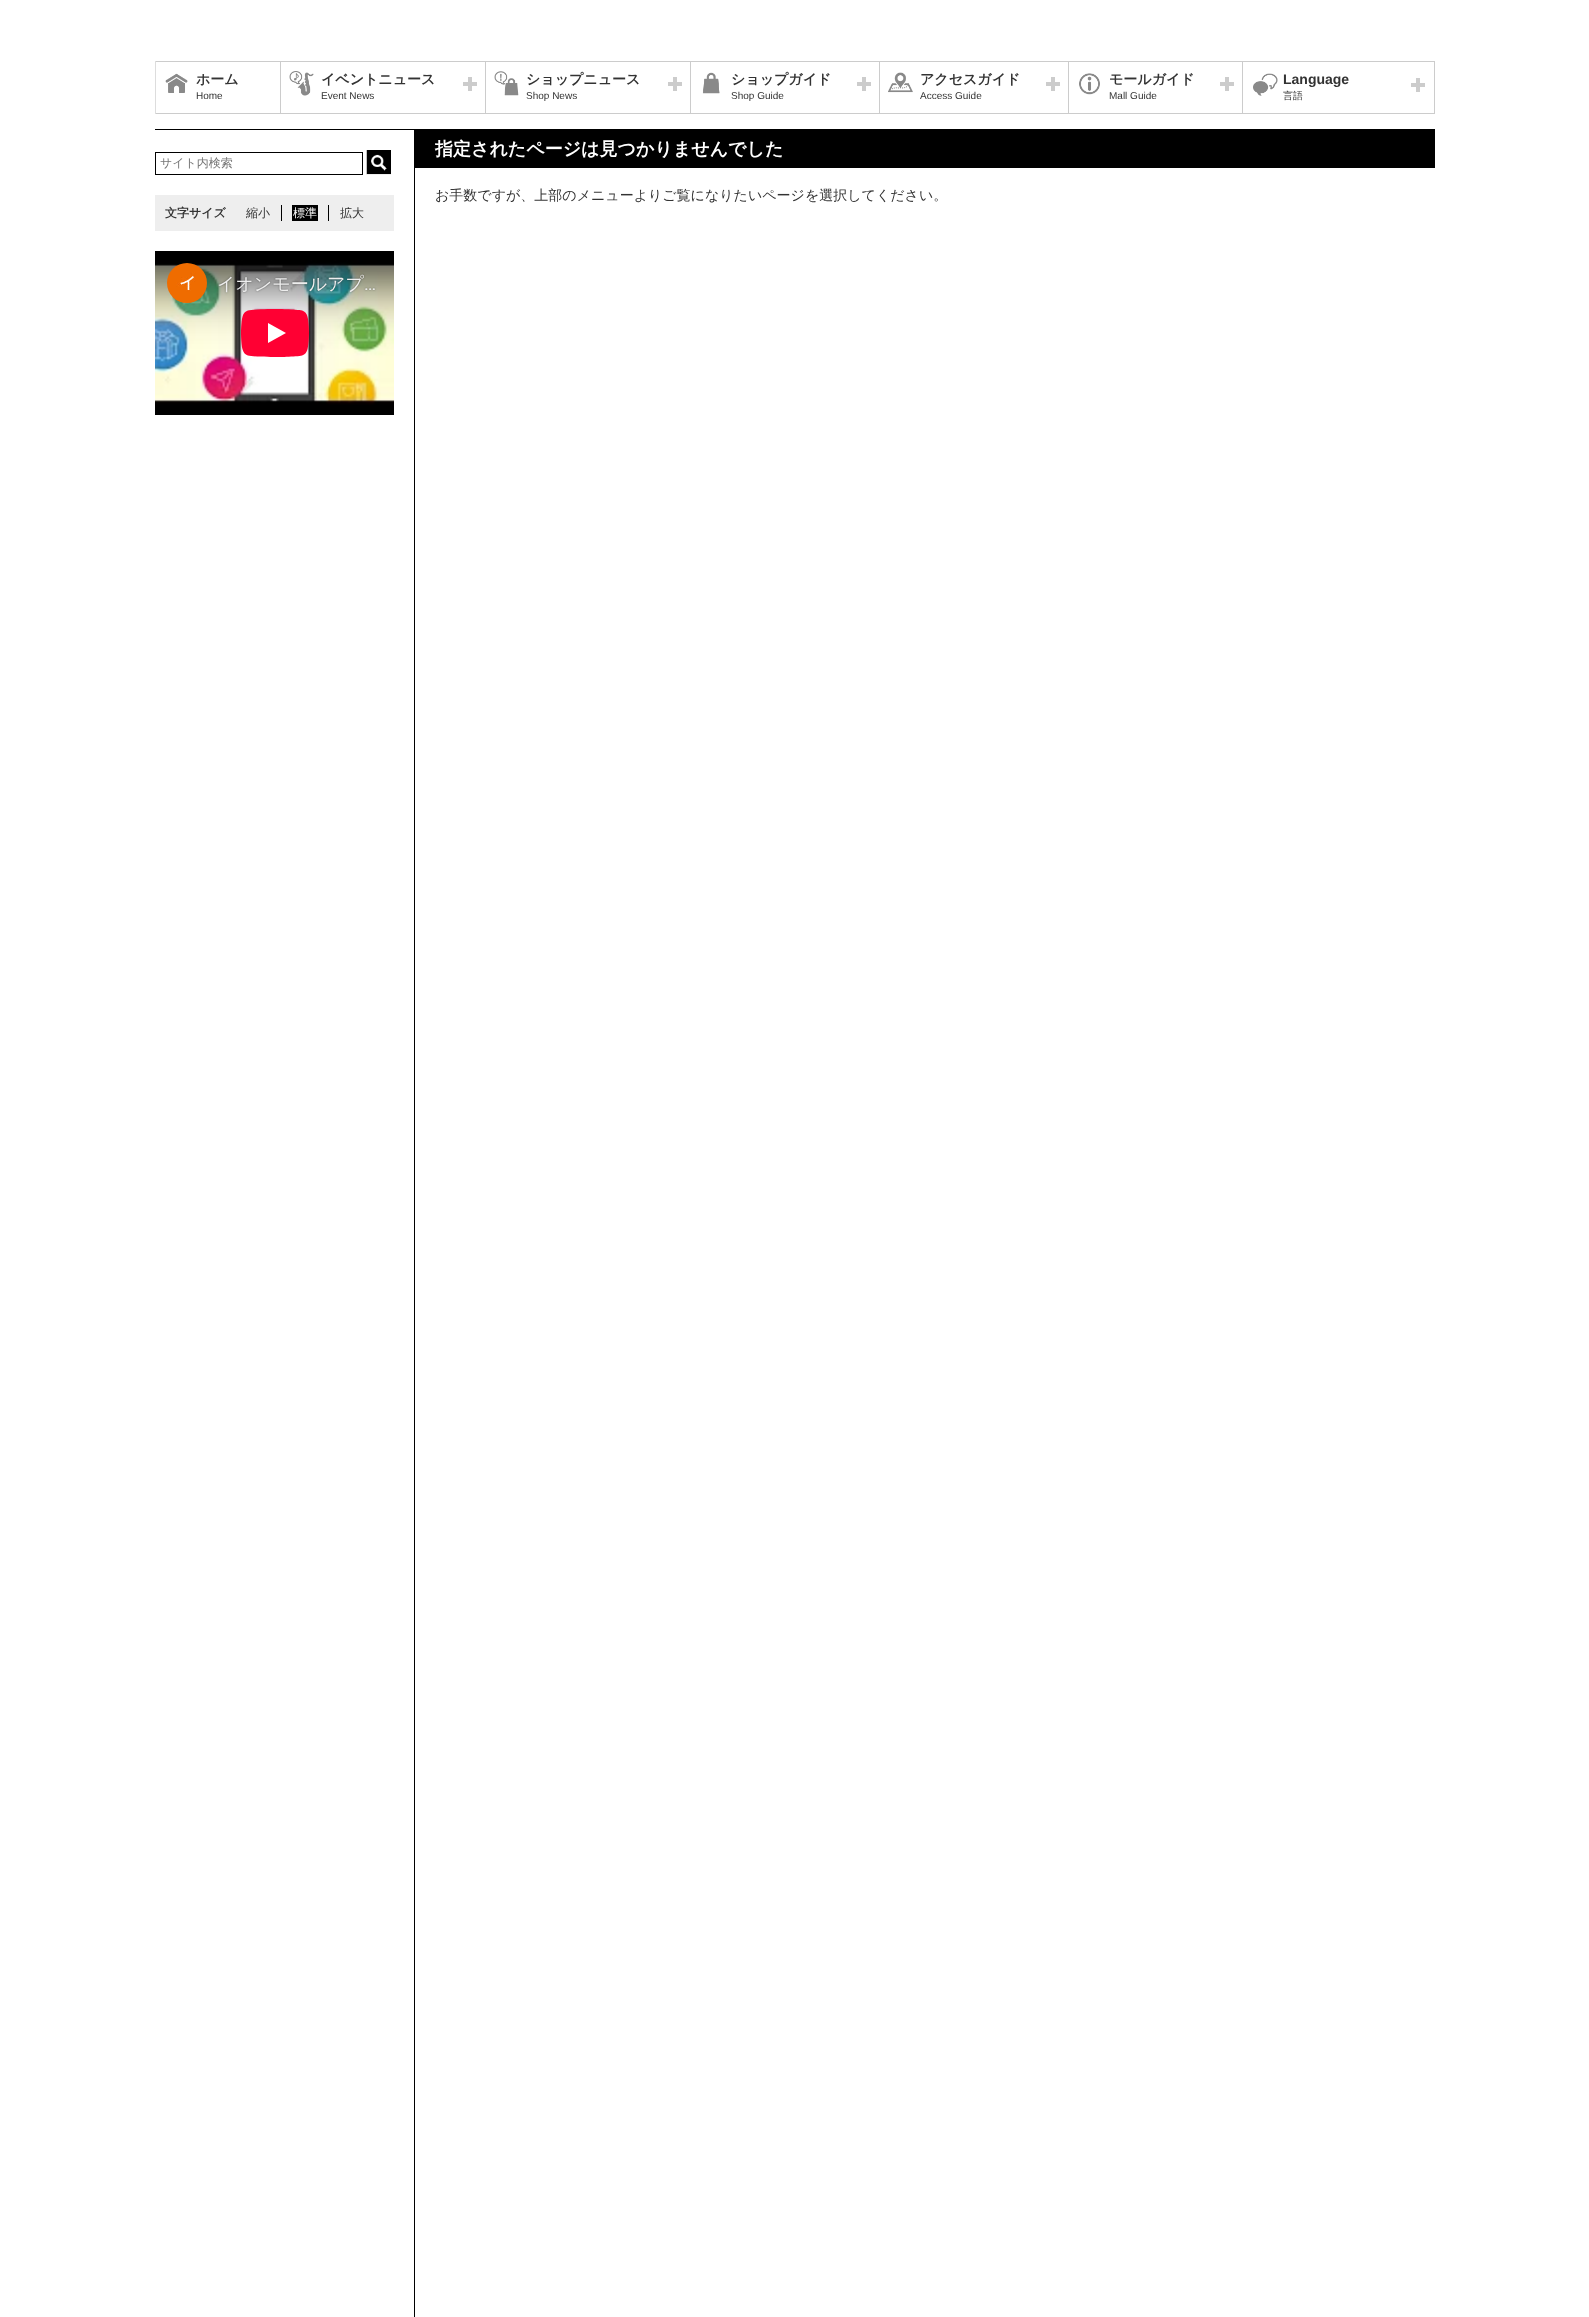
async function draw(canvas) {
	canvas.width = 1589;
	canvas.height = 2317;
	const c = canvas.getContext('2d');
	c.miterLimit = 4;
	c.fontKerning = 'normal';
	async function loadImage(src) {
		const img = new Image();
		img.src = src;
		await img.decode();
		return img;
	}

	c.fillStyle = '#fff';
	c.fillRect(0, 0, 1589, 2317);
	c.fillStyle = '#000';
	c.fillRect(155, 129, 1280, 1);
	c.fillStyle = '#ddd';
	c.fillRect(155, 61, 1, 53);
	c.drawImage(await loadImage('img1.png'), 165, 73, 23, 20);
	for (const [x, y, w, h, color] of [
		[156, 61, 1087, 1, '#ccc'],
		[280, 61, 1, 53, '#ccc'],
		[156, 113, 125, 1, '#ccc'],
	]) {
		c.fillStyle = color;
		c.fillRect(x, y, w, h);
	}
	c.font = 'bold 14px WenQuanYi Zen Hei';
	c.fillStyle = '#333';
	c.fillText('ホーム', 196, 84);
	c.font = '10px Liberation Sans';
	c.fillText('Home', 196, 99);
	c.drawImage(await loadImage('img2.png'), 289, 71, 25, 25);
	c.fillStyle = '#ccc';
	c.fillRect(485, 61, 1, 53);
	c.fillRect(281, 113, 205, 1);
	c.font = 'bold 14px WenQuanYi Zen Hei';
	c.fillStyle = '#333';
	c.fillText('イベントニュース', 321, 84);
	c.font = '10px Liberation Sans';
	c.fillText('Event News', 321, 99);
	c.fillStyle = '#ccc';
	c.fillRect(463, 82, 14, 4);
	c.fillRect(468, 77, 4, 14);
	c.drawImage(await loadImage('img3.png'), 494, 71, 25, 25);
	c.fillRect(690, 61, 1, 53);
	c.fillRect(486, 113, 205, 1);
	c.font = 'bold 14px WenQuanYi Zen Hei';
	c.fillStyle = '#333';
	c.fillText('ショップニュース', 526, 84);
	c.font = '10px Liberation Sans';
	c.fillText('Shop News', 526, 99);
	c.fillStyle = '#ccc';
	c.fillRect(668, 82, 14, 4);
	c.fillRect(673, 77, 4, 14);
	c.drawImage(await loadImage('img4.png'), 702, 72, 18, 22);
	c.fillRect(879, 61, 1, 53);
	c.fillRect(691, 113, 189, 1);
	c.font = 'bold 14px WenQuanYi Zen Hei';
	c.fillStyle = '#333';
	c.fillText('ショップガイド', 731, 84);
	c.font = '10px Liberation Sans';
	c.fillText('Shop Guide', 731, 99);
	c.fillStyle = '#ccc';
	c.fillRect(857, 82, 14, 4);
	c.fillRect(862, 77, 4, 14);
	c.drawImage(await loadImage('img5.png'), 888, 72, 25, 21);
	c.fillRect(1068, 61, 1, 53);
	c.fillRect(880, 113, 189, 1);
	c.font = 'bold 14px WenQuanYi Zen Hei';
	c.fillStyle = '#333';
	c.fillText('アクセスガイド', 920, 84);
	c.font = '10px Liberation Sans';
	c.fillText('Access Guide', 920, 99);
	c.fillStyle = '#ccc';
	c.fillRect(1046, 82, 14, 4);
	c.fillRect(1051, 77, 4, 14);
	c.drawImage(await loadImage('img6.png'), 1079, 73, 21, 22);
	c.fillRect(1242, 61, 1, 53);
	c.fillRect(1069, 113, 365, 1);
	c.font = 'bold 14px WenQuanYi Zen Hei';
	c.fillStyle = '#333';
	c.fillText('モールガイド', 1109, 84);
	c.font = '10px Liberation Sans';
	c.fillText('Mall Guide', 1109, 99);
	for (const [x, y, w, h, color] of [
		[1220, 82, 14, 4, '#ccc'],
		[1225, 77, 4, 14, '#ccc'],
		[1243, 61, 192, 1, '#ccc'],
		[1434, 61, 1, 53, '#ccc'],
	]) {
		c.fillStyle = color;
		c.fillRect(x, y, w, h);
	}
	c.drawImage(await loadImage('img7.png'), 1253, 73, 25, 23);
	c.font = 'bold 14px Liberation Sans';
	c.fillStyle = '#333';
	c.fillText('Language', 1283, 84);
	c.font = '500 10px WenQuanYi Zen Hei';
	c.fillText('言語', 1283, 99);
	for (const [x, y, w, h, color] of [
		[1411, 83, 14, 4, '#ccc'],
		[1416, 78, 4, 14, '#ccc'],
		[414, 130, 1, 2187, '#000'],
	]) {
		c.fillStyle = color;
		c.fillRect(x, y, w, h);
	}
	c.strokeStyle = '#000';
	c.strokeRect(155.5, 152.5, 207, 22);
	c.font = '500 12px WenQuanYi Zen Hei';
	c.fillStyle = '#757575';
	c.fillText('サイト内検索', 160, 167);
	c.fillStyle = '#efefef';
	c.fillRect(366, 174, 25, 1);
	c.drawImage(await loadImage('img8.png'), 366, 150, 25, 24);
	c.fillStyle = '#eee';
	c.fillRect(155, 195, 239, 36);
	c.font = 'bold 12px WenQuanYi Zen Hei';
	c.fillStyle = '#333';
	c.fillText('文字サイズ', 165, 217);
	c.font = '500 12px WenQuanYi Zen Hei';
	c.fillText('縮小', 246, 217);
	c.fillStyle = '#000';
	c.fillRect(281, 205, 1, 16);
	c.fillRect(292, 205, 26, 16);
	c.fillStyle = '#fff';
	c.fillText('標準', 293, 217);
	c.fillStyle = '#000';
	c.fillRect(328, 205, 1, 16);
	c.fillStyle = '#333';
	c.fillText('拡大', 340, 217);
	c.drawImage(await loadImage('img9.png'), 155, 251, 239, 164);
	c.fillStyle = '#000';
	c.fillRect(415, 130, 1020, 38);
	c.font = 'bold 18px WenQuanYi Zen Hei';
	c.fillStyle = '#fff';
	c.fillText('指定されたページは見つかりませんでした', 435, 155);
	c.font = '500 14px WenQuanYi Zen Hei';
	c.fillStyle = '#333';
	c.fillText('お手数ですが、上部のメニューよりご覧になりたいページを選択してください。', 435, 200);
}

draw(document.querySelector('canvas'));
